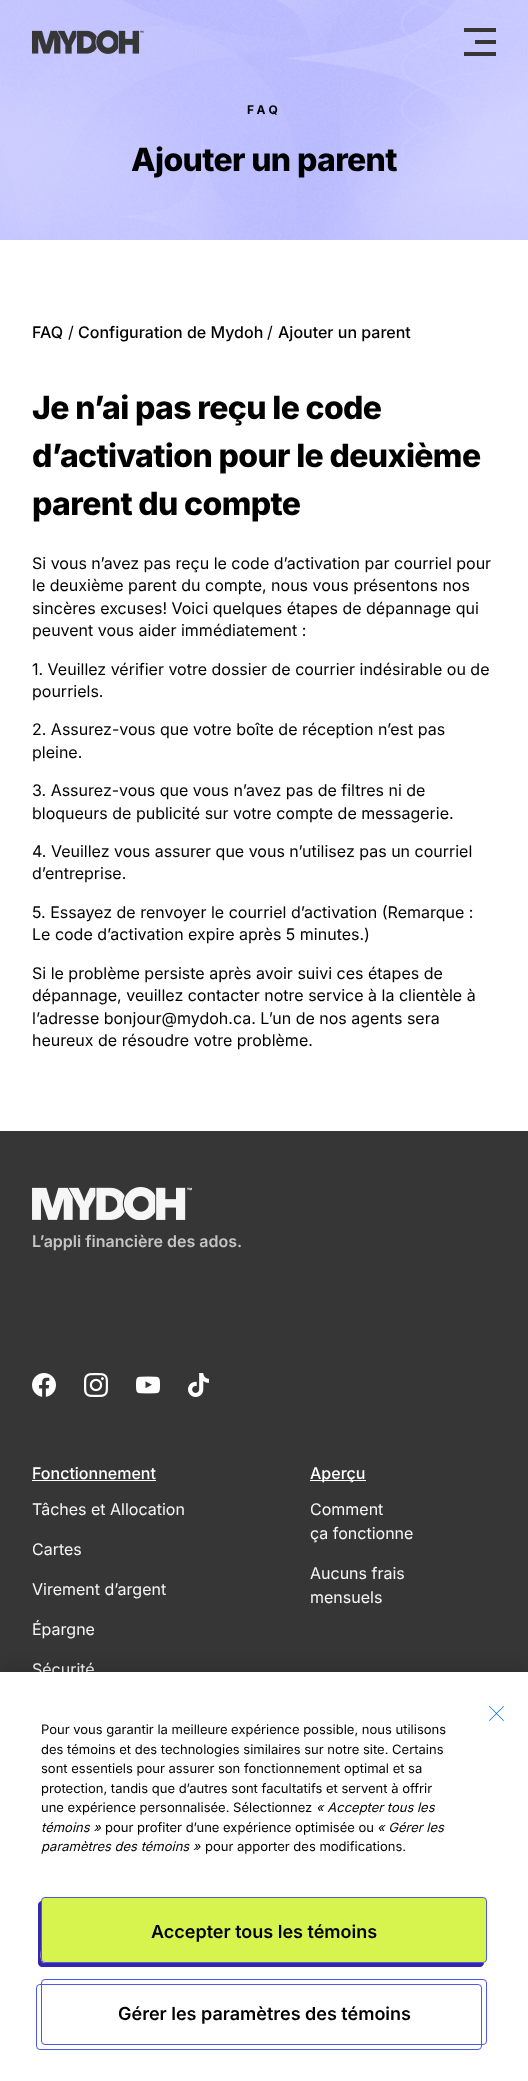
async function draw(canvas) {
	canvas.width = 528;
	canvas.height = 2081;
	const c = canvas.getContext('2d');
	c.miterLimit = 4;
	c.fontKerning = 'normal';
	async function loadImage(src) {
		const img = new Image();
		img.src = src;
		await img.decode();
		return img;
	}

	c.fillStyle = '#fff';
	c.fillRect(0, 0, 528, 2081);
	c.drawImage(await loadImage('img2.png'), 0, 0, 528, 240);
	c.drawImage(await loadImage('img1.png'), 32, 30, 112, 24);
	for (const [x, y, w, h, color] of [
		[464, 28, 32, 4, '#363636'],
		[475, 40, 21, 4, '#363636'],
		[464, 52, 32, 4, '#363636'],
	]) {
		c.fillStyle = color;
		c.fillRect(x, y, w, h);
	}
	c.letterSpacing = '3.5px';
	c.font = 'bold 12px Inter';
	c.fillStyle = '#000';
	c.fillText('FAQ', 247, 114);
	c.letterSpacing = '-0.65px';
	c.font = '800 32px Inter';
	c.fillText('Ajouter un parent', 131, 171);
	c.letterSpacing = '0px';
	c.font = '500 16px Inter';
	c.fillText('FAQ', 32, 338);
	c.font = '16px Inter';
	c.fillText('/', 68, 338);
	c.font = '500 16px Inter';
	c.fillText('Configuration de Mydoh', 78, 338);
	c.font = '16px Inter';
	c.fillText('/', 267, 338);
	c.font = '500 16px Inter';
	c.fillText('Ajouter un parent', 278, 338);
	c.letterSpacing = '-0.65px';
	c.font = '800 32px Inter';
	for (const [text, x, y] of [
		['Je n’ai pas reçu le code', 32, 419],
		['d’activation pour le deuxième', 32, 467],
		['parent du compte', 32, 515],
	]) {
		c.fillText(text, x, y);
	}
	c.letterSpacing = '0px';
	c.font = '16px Inter';
	for (const [text, x, y] of [
		['Si vous n’avez pas reçu le code d’activation par courriel pour', 32, 569],
		['le deuxième parent du compte, nous vous présentons nos', 32, 591],
		['sincères excuses! Voici quelques étapes de dépannage qui', 32, 614],
		['peuvent vous aider immédiatement :', 32, 636],
		['1. Veuillez vérifier votre dossier de courrier indésirable ou de', 32, 675],
		['pourriels.', 32, 697],
		['2. Assurez-vous que votre boîte de réception n’est pas', 32, 735],
		['pleine.', 32, 758],
		['3. Assurez-vous que vous n’avez pas de filtres ni de', 32, 796],
		['bloqueurs de publicité sur votre compte de messagerie.', 32, 819],
		['4. Veuillez vous assurer que vous n’utilisez pas un courriel', 32, 857],
		['d’entreprise.', 32, 879],
		['5. Essayez de renvoyer le courriel d’activation (Remarque :', 32, 918],
		['Le code d’activation expire après 5 minutes.)', 32, 940],
		['Si le problème persiste après avoir suivi ces étapes de', 32, 979],
		['dépannage, veuillez contacter notre service à la clientèle à', 32, 1001],
		['l’adresse bonjour@mydoh.ca. L’un de nos agents sera', 32, 1024],
		['heureux de résoudre votre problème.', 32, 1046],
	]) {
		c.fillText(text, x, y);
	}
	c.fillStyle = '#363636';
	c.fillRect(0, 1131, 528, 541);
	c.drawImage(await loadImage('img3.png'), 32, 1187, 160, 33);
	c.font = '600 16px Inter';
	c.fillStyle = '#c4c4c4';
	c.fillText('L’appli financière des ados.', 32, 1247);
	c.drawImage(await loadImage('img4.png'), 32, 1373, 24, 24);
	c.drawImage(await loadImage('img5.png'), 84, 1373, 24, 24);
	c.drawImage(await loadImage('img6.png'), 136, 1376, 24, 18);
	c.drawImage(await loadImage('img7.png'), 188, 1373, 21, 24);
	c.font = '500 16px Inter';
	c.fillStyle = '#fff';
	c.fillText('Fonctionnement', 32, 1479);
	c.fillRect(32, 1480, 124, 1);
	c.font = '16px Inter';
	c.fillStyle = '#f6f6f6';
	for (const [text, x, y] of [
		['Tâches et Allocation', 32, 1515],
		['Cartes', 32, 1555],
		['Virement d’argent', 32, 1595],
		['Épargne', 32, 1635],
		['Sécurité', 32, 1675],
	]) {
		c.fillText(text, x, y);
	}
	c.fillStyle = '#fff';
	c.fillRect(310, 1480, 56, 1);
	c.font = '500 16px Inter';
	c.fillText('Aperçu', 310, 1479);
	c.font = '16px Inter';
	c.fillStyle = '#f6f6f6';
	for (const [text, x, y] of [
		['Comment', 310, 1515],
		['ça fonctionne', 310, 1539],
		['Aucuns frais', 310, 1579],
		['mensuels', 310, 1603],
	]) {
		c.fillText(text, x, y);
	}
	c.fillStyle = '#00000033';
	c.filter = 'blur(9px)';
	c.beginPath();
	c.rect(0, 1672, 528, 409);
	c.fill();
	c.filter = 'none';
	c.fillStyle = '#fff';
	c.fillRect(0, 1672, 528, 409);
	c.drawImage(await loadImage('img8.png'), 489, 1706, 15, 15);
	c.font = '13px Inter';
	c.fillStyle = '#000';
	for (const [text, x, y] of [
		['Pour vous garantir la meilleure expérience possible, nous utilisons', 41, 1734],
		['des témoins et des technologies similaires sur notre site. Certains', 41, 1754],
		['sont essentiels pour assurer son fonctionnement optimal et sa', 41, 1773],
		['protection, tandis que d’autres sont facultatifs et servent à offrir', 41, 1793],
		['une expérience personnalisée. Sélectionnez', 41, 1812],
	]) {
		c.fillText(text, x, y);
	}
	c.font = 'italic 13px Inter';
	c.fillText('« Accepter tous les', 316, 1812);
	c.fillText('témoins »', 41, 1832);
	c.font = '13px Inter';
	c.fillText('pour profiter d’une expérience optimisée ou', 105, 1832);
	c.font = 'italic 13px Inter';
	c.fillText('« Gérer les', 377, 1832);
	c.fillText('paramètres des témoins »', 41, 1851);
	c.font = '13px Inter';
	c.fillText('pour apporter des modifications.', 205, 1851);
	c.fillStyle = '#3625af';
	c.beginPath();
	c.moveTo(41, 1901);
	c.bezierCurveTo(39, 1902, 38, 1903, 38, 1905);
	c.lineTo(38, 1963);
	c.bezierCurveTo(38, 1965, 40, 1967, 42, 1967);
	c.lineTo(480, 1967);
	c.bezierCurveTo(482, 1967, 484, 1965, 484, 1963);
	c.lineTo(45, 1963);
	c.bezierCurveTo(39, 1963, 41, 1952, 41, 1949);
	c.closePath();
	c.fill();
	c.fillStyle = '#d7f44e';
	c.beginPath();
	c.roundRect(41.5, 1897.5, 445, 65, 3.5);
	c.fill();
	c.strokeStyle = '#4d59e0';
	c.stroke();
	c.font = '600 18px Inter';
	c.fillStyle = '#000';
	c.fillText('Accepter tous les témoins', 151, 1938);
	c.beginPath();
	c.roundRect(41.5, 1979.5, 445, 65, 3.5);
	c.stroke();
	c.beginPath();
	c.roundRect(36.5, 1984.5, 445, 65, 3.5);
	c.stroke();
	c.fillText('Gérer les paramètres des témoins', 118, 2020);
}

draw(document.querySelector('canvas'));
